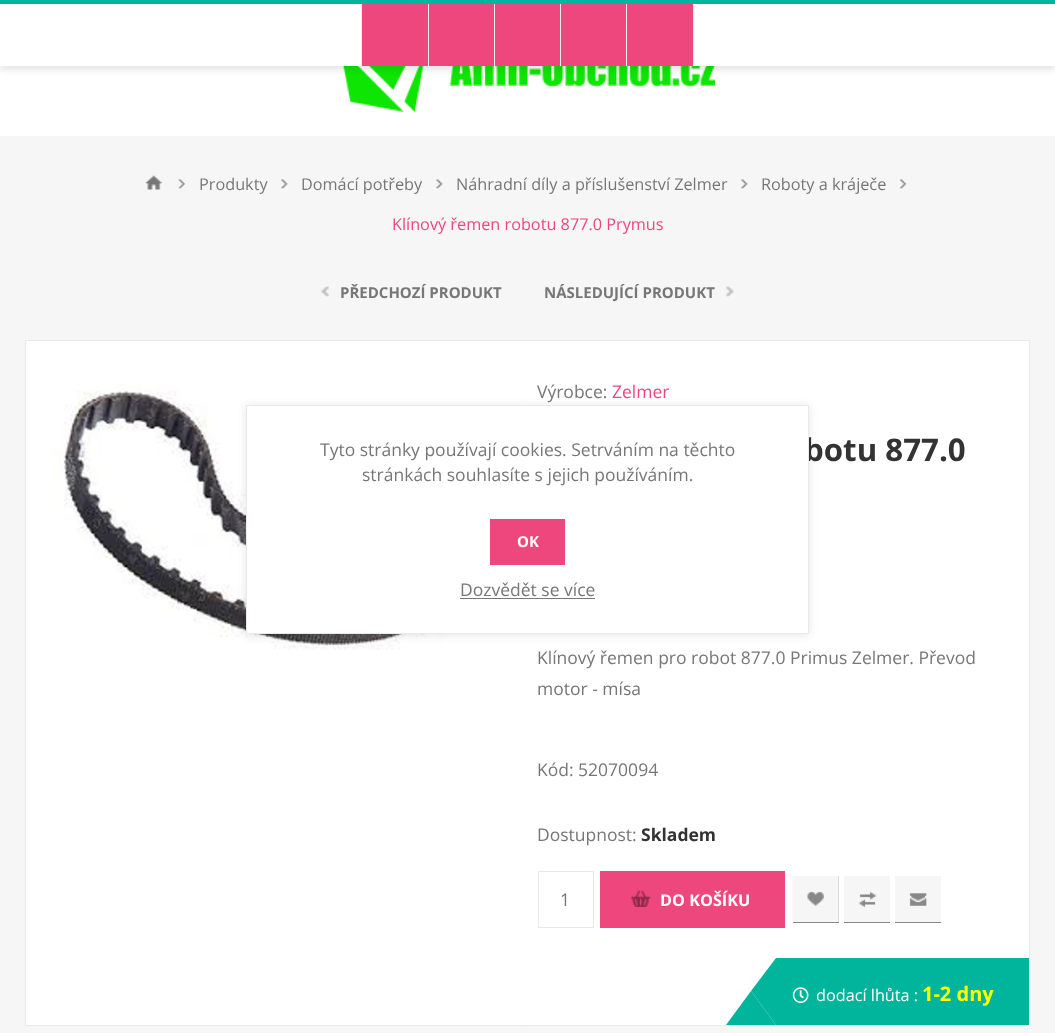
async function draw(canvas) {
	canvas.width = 1055;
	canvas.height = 1033;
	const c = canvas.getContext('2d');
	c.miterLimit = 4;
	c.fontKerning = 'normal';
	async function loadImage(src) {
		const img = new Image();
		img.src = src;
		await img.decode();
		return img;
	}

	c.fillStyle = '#f6f6f6';
	c.fillRect(0, 0, 1055, 1033);
	c.fillStyle = '#fff';
	c.fillRect(0, 66, 1055, 70);
	c.drawImage(await loadImage('img1.png'), 340, 66, 375, 46);
	c.fillStyle = '#0000001a';
	c.filter = 'blur(3px)';
	c.beginPath();
	c.rect(0, 4, 1055, 66);
	c.fill();
	c.filter = 'none';
	for (const [x, y, w, h, color] of [
		[0, 4, 1055, 62, '#fff'],
		[0, 0, 1055, 4, '#01b59c'],
		[362, 4, 66, 62, '#ee477d'],
		[428, 4, 1, 62, '#eee'],
		[361, 4, 1, 62, '#eee'],
		[429, 4, 65, 62, '#ee477d'],
		[494, 4, 1, 62, '#eee'],
		[495, 4, 65, 62, '#ee477d'],
		[560, 4, 1, 62, '#eee'],
		[561, 4, 132, 62, '#ee477d'],
		[626, 4, 1, 62, '#eee'],
		[693, 4, 1, 62, '#eee'],
	]) {
		c.fillStyle = color;
		c.fillRect(x, y, w, h);
	}
	c.drawImage(await loadImage('img2.png'), 145, 175, 18, 15);
	c.drawImage(await loadImage('img3.png'), 178, 179, 7, 10);
	c.font = '16.25px Open Sans';
	c.fillStyle = '#777';
	c.fillText('Produkty', 199, 190);
	c.drawImage(await loadImage('img4.png'), 281, 179, 7, 10);
	c.fillText('Domácí potřeby', 301, 190);
	c.drawImage(await loadImage('img4.png'), 436, 179, 7, 10);
	c.fillText('Náhradní díly a příslušenství Zelmer', 456, 190);
	c.drawImage(await loadImage('img4.png'), 741, 179, 7, 10);
	c.fillText('Roboty a kráječe', 761, 190);
	c.drawImage(await loadImage('img5.png'), 900, 179, 7, 10);
	c.fillStyle = '#ee477d';
	c.fillText('Klínový řemen robotu 877.0 Prymus', 392, 230);
	c.drawImage(await loadImage('img6.png'), 321, 286, 8, 11);
	c.font = 'bold 15px Open Sans';
	c.fillStyle = '#777';
	c.fillText('PŘEDCHOZÍ PRODUKT', 340, 298);
	c.fillText('NÁSLEDUJÍCÍ PRODUKT', 544, 298);
	c.drawImage(await loadImage('img7.png'), 726, 286, 8, 11);
	c.fillStyle = '#fff';
	c.beginPath();
	c.rect(25.5, 340.5, 1004, 685);
	c.fill();
	c.strokeStyle = '#e9e9e9';
	c.stroke();
	c.drawImage(await loadImage('img8.png'), 52, 384, 453, 266);
	c.font = '17.5px Open Sans';
	c.fillStyle = '#777';
	c.fillText('Výrobce:', 537, 398);
	c.fillStyle = '#ee477d';
	c.fillText('Zelmer', 612, 398);
	c.font = 'bold 31.25px Open Sans';
	c.fillStyle = '#333';
	c.fillText('botu 877.0', 804, 461);
	c.font = '17.5px Open Sans';
	c.fillStyle = '#777';
	for (const [text, x, y] of [
		['Klínový řemen pro robot 877.0 Primus Zelmer. Převod', 537, 664],
		['motor - mísa', 537, 695],
		['Kód: 52070094', 537, 776],
		['Dostupnost:', 537, 841],
	]) {
		c.fillText(text, x, y);
	}
	c.font = 'bold 17.5px Open Sans';
	c.fillStyle = '#333';
	c.fillText('Skladem', 641, 841);
	c.strokeRect(538.5, 871.5, 55, 56);
	c.font = '17.5px Open Sans';
	c.fillStyle = '#777';
	c.fillText('1', 560, 906);
	c.fillStyle = '#ee477d';
	c.fillRect(600, 871, 185, 57);
	c.drawImage(await loadImage('img9.png'), 631, 890, 20, 17);
	c.font = 'bold 16.25px Open Sans';
	c.fillStyle = '#fff';
	c.fillText('DO KOŠÍKU', 660, 906);
	c.fillStyle = '#888';
	c.fillRect(793, 876, 46, 47);
	c.drawImage(await loadImage('img10.png'), 792, 876, 47, 46);
	c.fillRect(844, 891, 46, 32);
	c.drawImage(await loadImage('img11.png'), 844, 876, 46, 46);
	c.fillRect(895, 893, 46, 30);
	c.drawImage(await loadImage('img12.png'), 895, 876, 46, 46);
	c.fillStyle = '#01b59c';
	c.fillRect(776, 958, 253, 67);
	c.beginPath();
	c.moveTo(776, 958);
	c.lineTo(776, 1025);
	c.lineTo(751, 991);
	c.closePath();
	c.fill();
	c.beginPath();
	c.moveTo(776, 1025);
	c.lineTo(726, 1025);
	c.lineTo(751, 991);
	c.closePath();
	c.fill();
	c.drawImage(await loadImage('img13.png'), 792, 987, 17, 16);
	c.font = '16.25px Open Sans';
	c.fillStyle = '#fff';
	c.fillText('dodací lhůta :', 816, 1001);
	c.font = 'bold 20px Open Sans';
	c.fillStyle = '#ff0';
	c.fillText('1-2 dny', 922, 1001);
	c.fillStyle = '#0000001a';
	c.filter = 'blur(5px)';
	c.beginPath();
	c.rect(246, 406, 563, 229);
	c.fill();
	c.filter = 'none';
	c.fillStyle = '#fff';
	c.beginPath();
	c.rect(246.5, 405.5, 562, 228);
	c.fill();
	c.stroke();
	c.font = '17.5px Open Sans';
	c.fillStyle = '#777';
	c.fillText('Tyto stránky používají cookies. Setrváním na těchto', 320, 456);
	c.fillText('stránkách souhlasíte s jejich používáním.', 362, 481);
	c.fillStyle = '#ee477d';
	c.fillRect(490, 519, 75, 46);
	c.font = 'bold 15px Open Sans';
	c.fillStyle = '#fff';
	c.fillText('OK', 517, 547);
	c.font = '17.5px Open Sans';
	c.fillStyle = '#777';
	c.fillText('Dozvědět se více', 460, 596);
	c.fillRect(460, 598, 135, 1);
}

draw(document.querySelector('canvas'));
